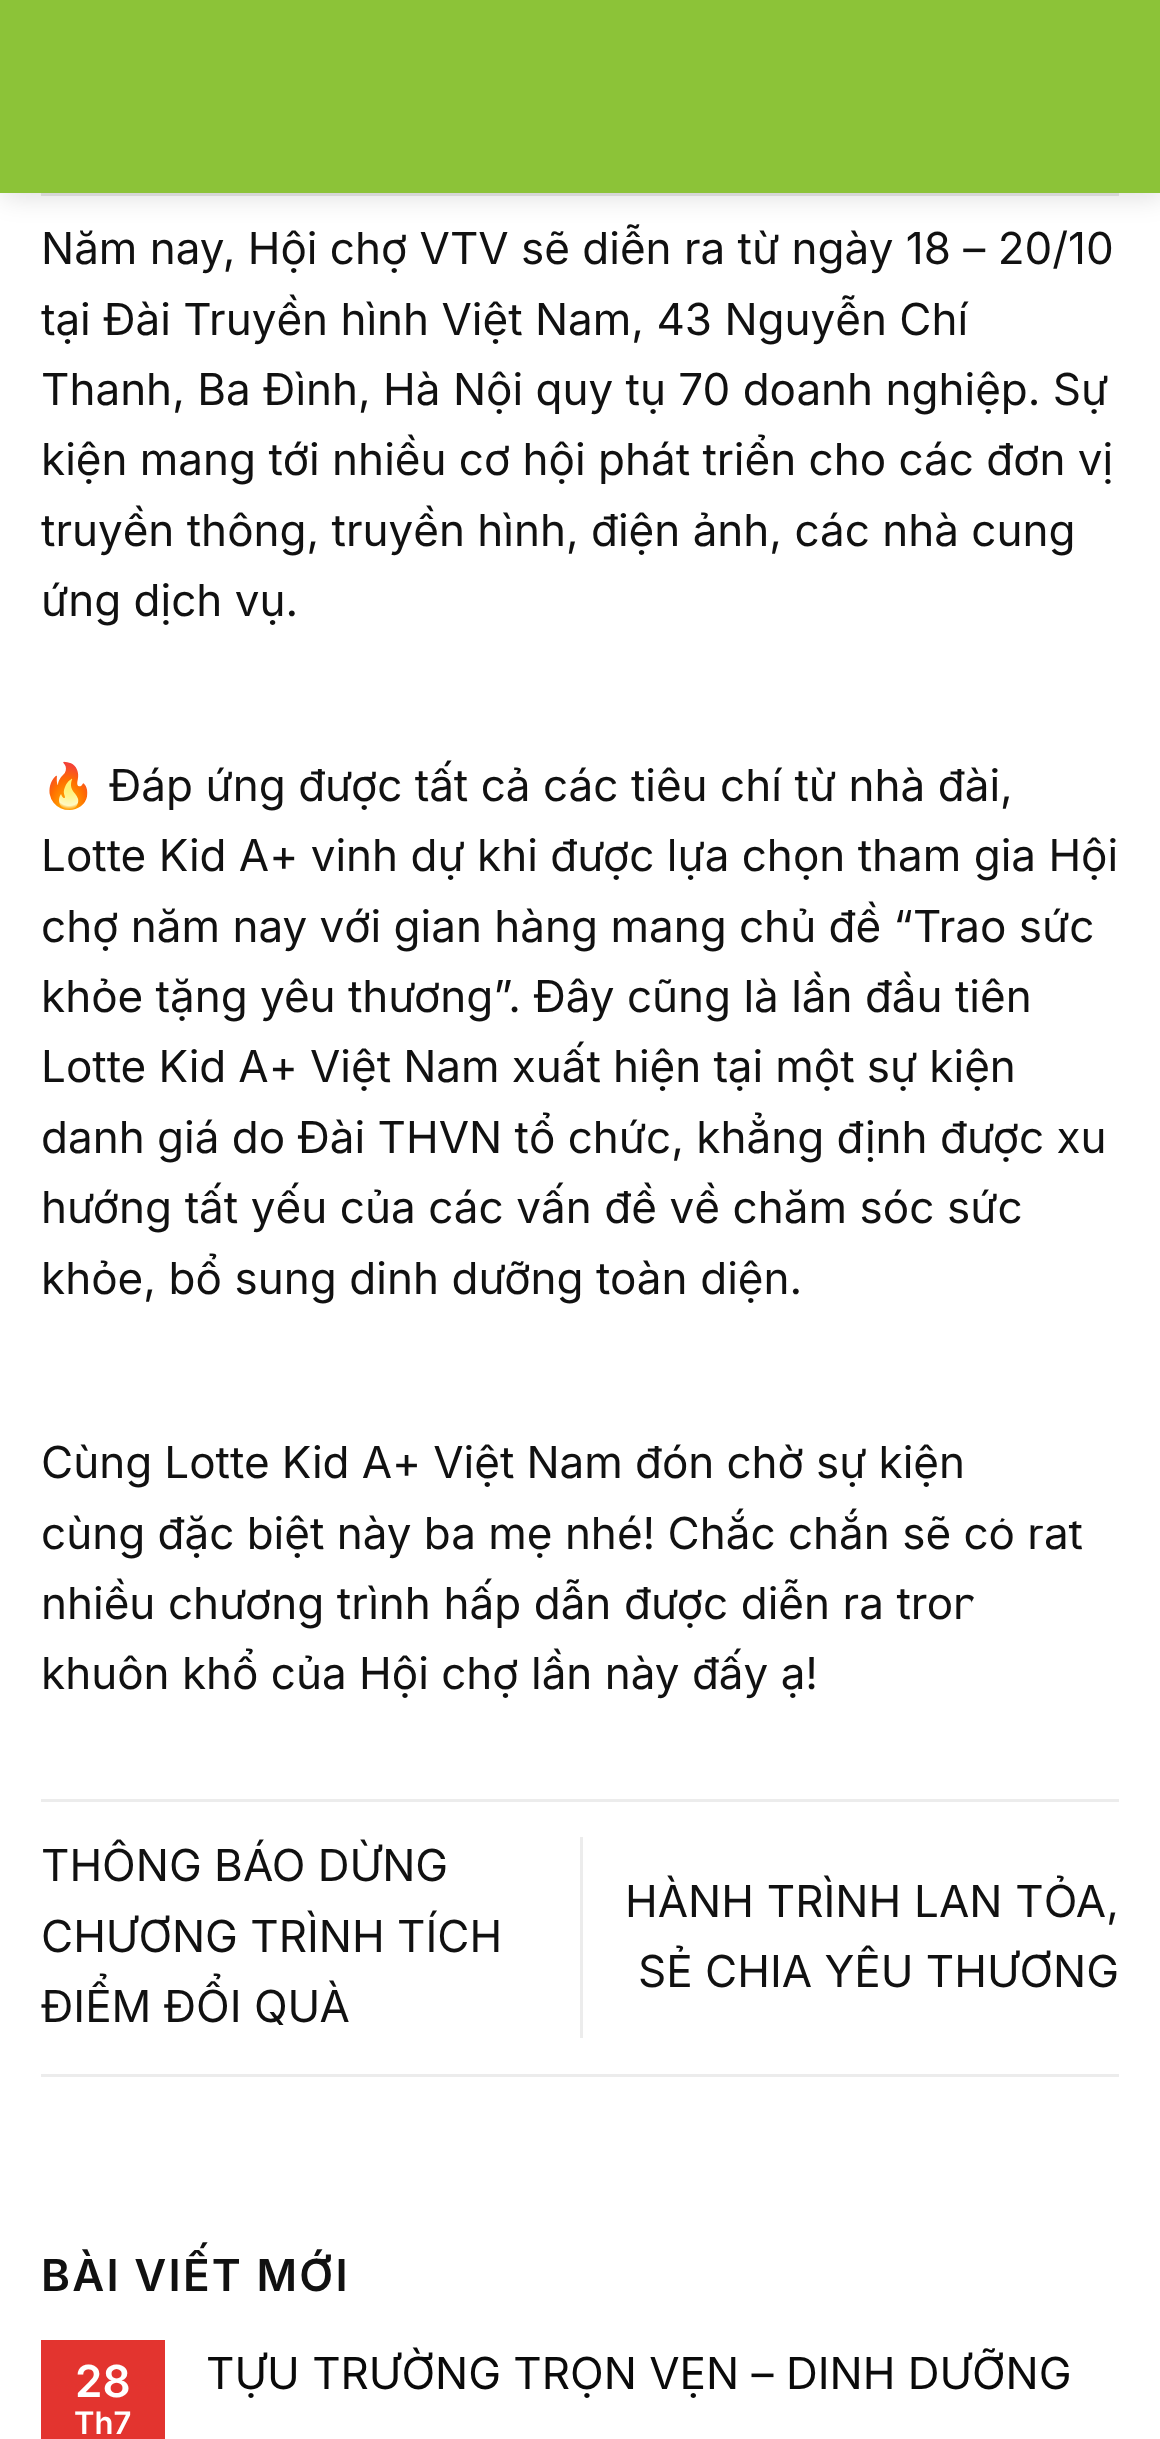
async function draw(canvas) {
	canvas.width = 1160;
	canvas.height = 2439;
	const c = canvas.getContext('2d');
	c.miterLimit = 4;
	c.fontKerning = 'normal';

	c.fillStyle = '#fff';
	c.fillRect(0, 0, 1160, 2439);
	c.fillStyle = '#00000026';
	c.filter = 'blur(14px)';
	c.beginPath();
	c.rect(3, 3, 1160, 192);
	c.fill();
	c.filter = 'none';
	c.fillStyle = '#8cc338';
	c.fillRect(0, 0, 1160, 193);
	c.fillStyle = '#d6d6d6';
	c.fillRect(41, 193, 1078, 3);
	c.font = '44px Inter';
	c.fillStyle = '#111';
	for (const [text, x, y] of [
		['Năm nay, Hội chợ VTV sẽ diễn ra từ ngày 18 – 20/10', 41, 264],
		['tại Đài Truyền hình Việt Nam, 43 Nguyễn Chí', 41, 335],
		['Thanh, Ba Đình, Hà Nội quy tụ 70 doanh nghiệp. Sự', 41, 405],
		['kiện mang tới nhiều cơ hội phát triển cho các đơn vị', 41, 475],
		['truyền thông, truyền hình, điện ảnh, các nhà cung', 41, 546],
		['ứng dịch vụ.', 41, 616],
	]) {
		c.fillText(text, x, y);
	}
	c.font = '44px Noto Color Emoji';
	c.fillText('🔥', 41, 801);
	c.wordSpacing = '0.1px';
	c.font = '44px Inter';
	c.fillText('Đáp ứng được tất cả các tiêu chí từ nhà đài,', 109, 801);
	c.wordSpacing = '0px';
	for (const [text, x, y] of [
		['Lotte Kid A+ vinh dự khi được lựa chọn tham gia Hội', 41, 871],
		['chợ năm nay với gian hàng mang chủ đề “Trao sức', 41, 942],
		['khỏe tặng yêu thương”. Đây cũng là lần đầu tiên', 41, 1012],
	]) {
		c.fillText(text, x, y);
	}
	c.wordSpacing = '-0.25px';
	c.fillText('Lotte Kid A+ Việt Nam xuất hiện tại một sự kiện', 41, 1082);
	c.wordSpacing = '0px';
	c.fillText('danh giá do Đài THVN tổ chức, khẳng định được xu', 41, 1153);
	c.wordSpacing = '0.25px';
	c.fillText('hướng tất yếu của các vấn đề về chăm sóc sức', 41, 1223);
	c.fillText('khỏe, bổ sung dinh dưỡng toàn diện.', 41, 1294);
	c.wordSpacing = '-0.25px';
	c.fillText('Cùng Lotte Kid A+ Việt Nam đón chờ sự kiện', 41, 1478);
	c.wordSpacing = '0px';
	c.fillText('cùng đặc biệt này ba mẹ nhé! Chắc chắn sẽ có rất', 41, 1549);
	c.wordSpacing = '0.25px';
	c.fillText('nhiều chương trình hấp dẫn được diễn ra tron', 41, 1619);
	c.wordSpacing = '0px';
	c.fillText('khuôn khổ của Hội chợ lần này đấy ạ!', 41, 1689);
	c.fillStyle = '#ececec';
	c.fillRect(41, 1799, 1078, 3);
	c.fillRect(41, 2074, 1078, 3);
	c.fillStyle = '#111';
	for (const [text, x, y] of [
		['THÔNG BÁO DỪNG', 41, 1881],
		['CHƯƠNG TRÌNH TÍCH', 41, 1952],
		['ĐIỂM ĐỔI QUÀ', 41, 2022],
	]) {
		c.fillText(text, x, y);
	}
	c.fillStyle = '#ececec';
	c.fillRect(580, 1837, 3, 201);
	c.wordSpacing = '0.5px';
	c.fillStyle = '#111';
	c.fillText('HÀNH TRÌNH LAN TỎA,', 625, 1917);
	c.wordSpacing = '0px';
	c.fillText('SẺ CHIA YÊU THƯƠNG', 638, 1987);
	c.letterSpacing = '2.25px';
	c.font = '600 44px Inter';
	c.fillText('BÀI VIẾT MỚI', 41, 2291);
	c.fillStyle = '#e3342f';
	c.fillRect(41, 2340, 124, 99);
	c.letterSpacing = '0px';
	c.fillStyle = '#fff';
	c.fillText('28', 75, 2397);
	c.font = '600 31px Inter';
	c.fillText('Th7', 74, 2434);
	c.font = '44px Inter';
	c.fillStyle = '#0a0a0a';
	c.fillText('TỰU TRƯỜNG TRỌN VẸN – DINH DƯỠNG', 206, 2389);
	c.fillStyle = '#fff';
	c.beginPath();
	c.ellipse(1043.5, 1478, 75.5, 48, 0, 0, 2 * Math.PI);
	c.fill();
	c.beginPath();
	c.ellipse(1043.5, 1617, 75.5, 49.5, 0, 0, 2 * Math.PI);
	c.fill();
}

draw(document.querySelector('canvas'));
